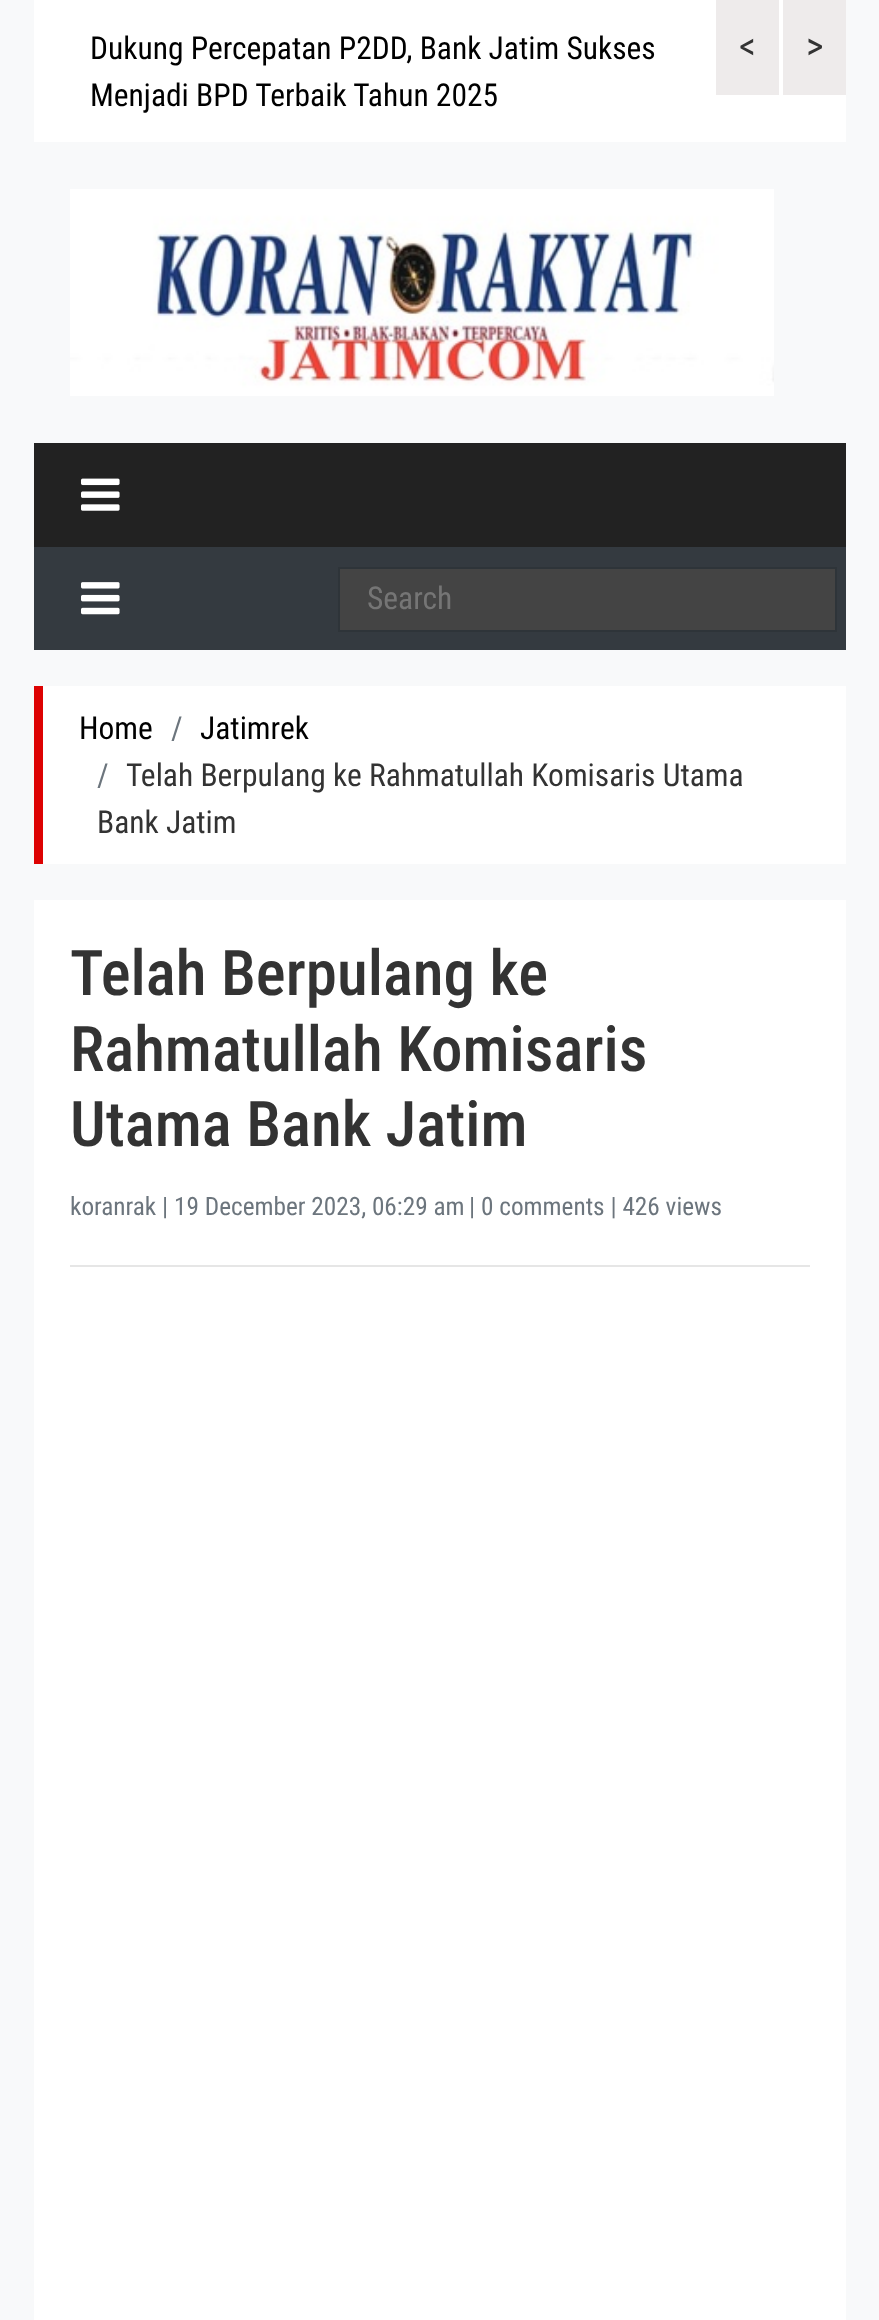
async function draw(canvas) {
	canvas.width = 879;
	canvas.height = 2320;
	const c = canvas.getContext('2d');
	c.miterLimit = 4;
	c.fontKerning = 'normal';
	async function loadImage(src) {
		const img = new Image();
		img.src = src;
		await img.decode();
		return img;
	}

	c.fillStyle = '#f8f9fa';
	c.fillRect(0, 0, 879, 2320);
	c.fillStyle = '#fff';
	c.fillRect(34, 0, 812, 142);
	c.font = '31.5px Roboto Condensed';
	c.fillStyle = '#000';
	c.fillText('Dukung Percepatan P2DD, Bank Jatim Sukses', 90, 59);
	c.fillText('Menjadi BPD Terbaik Tahun 2025', 90, 106);
	c.fillStyle = '#eeebeb';
	c.fillRect(716, 0, 63, 95);
	c.font = '38px Roboto Condensed';
	c.fillStyle = '#333';
	c.fillText('<', 739, 59);
	c.fillStyle = '#eeebeb';
	c.fillRect(783, 0, 63, 95);
	c.fillStyle = '#333';
	c.fillText('>', 806, 59);
	c.drawImage(await loadImage('img1.png'), 70, 189, 704, 207);
	c.fillStyle = '#222';
	c.fillRect(34, 443, 812, 104);
	c.drawImage(await loadImage('img2.png'), 81, 478, 39, 33);
	c.fillStyle = '#343a40';
	c.fillRect(34, 547, 812, 103);
	c.drawImage(await loadImage('img3.png'), 81, 582, 39, 33);
	c.fillStyle = '#444';
	c.beginPath();
	c.rect(339, 568, 497, 63);
	c.fill();
	c.strokeStyle = '#2e3439';
	c.lineWidth = 2;
	c.stroke();
	c.font = '31.5px Roboto Condensed';
	c.fillStyle = '#757575';
	c.fillText('Search', 367, 609);
	c.fillStyle = '#fff';
	c.fillRect(43, 686, 803, 178);
	c.fillStyle = '#dd0202';
	c.fillRect(34, 686, 9, 178);
	c.fillStyle = '#000';
	c.fillText('Home', 79, 739);
	c.fillStyle = '#6c757d';
	c.fillText('/', 171, 739);
	c.fillStyle = '#000';
	c.fillText('Jatimrek', 200, 739);
	c.fillStyle = '#6c757d';
	c.fillText('/', 97, 786);
	c.fillStyle = '#333';
	c.fillText('Telah Berpulang ke Rahmatullah Komisaris Utama', 126, 786);
	c.fillText('Bank Jatim', 97, 833);
	c.fillStyle = '#fff';
	c.fillRect(34, 900, 812, 1420);
	c.font = '500 63px Roboto Condensed';
	c.fillStyle = '#333';
	for (const [text, x, y] of [
		['Telah Berpulang ke', 70, 995],
		['Rahmatullah Komisaris', 70, 1071],
		['Utama Bank Jatim', 70, 1146],
	]) {
		c.fillText(text, x, y);
	}
	c.font = '25.25px Roboto Condensed';
	c.fillStyle = '#6c757d';
	c.fillText('koranrak | 19 December 2023, 06:29 am', 70, 1215);
	c.fillText('| 0 comments | 426 views', 469, 1215);
	c.fillStyle = '#e6e6e6';
	c.fillRect(70, 1265, 740, 2);
}

draw(document.querySelector('canvas'));
